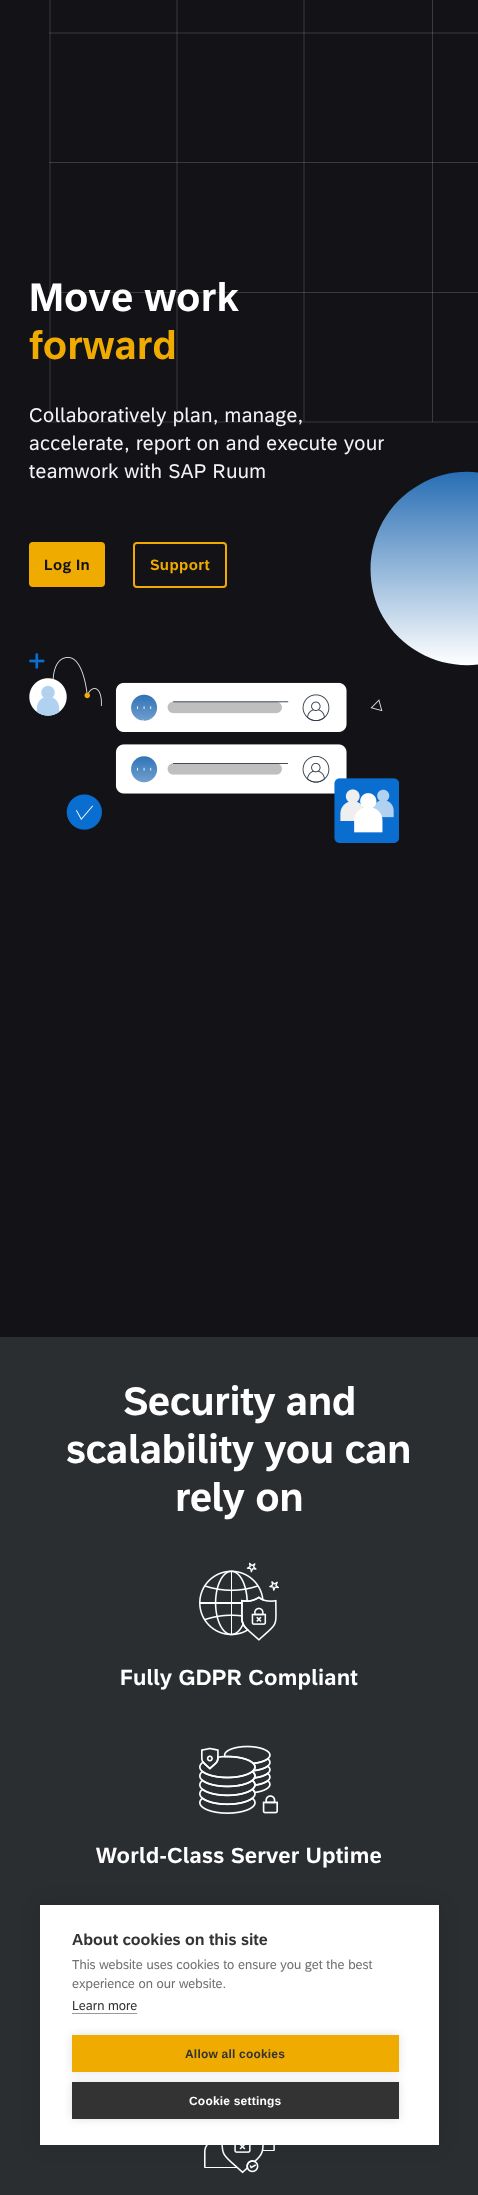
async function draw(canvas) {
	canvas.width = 478;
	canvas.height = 2195;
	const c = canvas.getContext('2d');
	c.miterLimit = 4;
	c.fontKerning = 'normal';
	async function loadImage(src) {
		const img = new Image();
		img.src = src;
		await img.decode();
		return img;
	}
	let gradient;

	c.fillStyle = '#121217';
	c.fillRect(0, 0, 478, 2195);
	c.beginPath();
	c.moveTo(50, -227);
	c.lineTo(50, 421.5);
	c.strokeStyle = '#4b4b4f';
	c.lineWidth = 0.7;
	c.stroke();
	c.beginPath();
	c.moveTo(177, -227);
	c.lineTo(177, 421.5);
	c.stroke();
	c.beginPath();
	c.moveTo(304, -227);
	c.lineTo(304, 421.5);
	c.stroke();
	c.fillStyle = '#3a3a3e';
	c.fillRect(432, 0, 1, 422);
	c.fillStyle = '#ffffff2b';
	c.fillRect(49, 292, 429, 1);
	c.beginPath();
	c.moveTo(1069.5, 422);
	c.lineTo(49, 422);
	c.strokeStyle = '#ffffff3d';
	c.stroke();
	c.beginPath();
	c.moveTo(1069.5, 33);
	c.lineTo(49, 33);
	c.stroke();
	c.fillRect(49, 162, 429, 1);
	gradient = c.createLinearGradient(467, 472, 467, 665);
	gradient.addColorStop(0, '#286eb4');
	gradient.addColorStop(1, '#fff');
	c.fillStyle = gradient;
	c.beginPath();
	c.moveTo(419, 485);
	c.bezierCurveTo(373, 511, 357, 571, 383, 617);
	c.bezierCurveTo(410, 663, 469, 679, 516, 652);
	c.bezierCurveTo(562, 626, 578, 566, 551, 520);
	c.bezierCurveTo(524, 474, 465, 458, 419, 485);
	c.closePath();
	c.fill();
	c.letterSpacing = '0.2px';
	c.font = 'bold 40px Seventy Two';
	c.fillStyle = '#fff';
	c.fillText('Move work', 29, 311);
	c.fillStyle = '#f0ab00';
	c.fillText('forward', 29, 359);
	c.letterSpacing = '0.4px';
	c.font = '20px Seventy Two';
	c.fillStyle = '#f3f3f3';
	for (const [text, x, y] of [
		['Collaboratively plan, manage,', 29, 422],
		['accelerate, report on and execute your', 29, 450],
		['teamwork with SAP Ruum', 29, 478],
	]) {
		c.fillText(text, x, y);
	}
	c.fillStyle = '#f0ab00';
	c.beginPath();
	c.roundRect(29, 542, 76, 45, 4);
	c.fill();
	c.font = 'bold 15px Seventy Two';
	c.fillStyle = '#121217';
	c.fillText('Log In', 44, 570);
	c.beginPath();
	c.roundRect(134, 543, 92, 44, 3);
	c.strokeStyle = '#f0ab00';
	c.lineWidth = 2;
	c.stroke();
	c.fillStyle = '#f0ab00';
	c.fillText('Support', 150, 570);
	c.drawImage(await loadImage('img1.png'), 29, 653, 370, 190);
	c.fillStyle = '#2a2e31';
	c.fillRect(0, 1337, 478, 858);
	c.letterSpacing = '-0.4px';
	c.font = 'bold 40px Seventy Two';
	c.fillStyle = '#fff';
	for (const [text, x, y] of [
		['Security and', 123, 1415],
		['scalability you can', 66, 1463],
		['rely on', 175, 1511],
	]) {
		c.fillText(text, x, y);
	}
	c.drawImage(await loadImage('img2.png'), 199, 1562, 80, 79);
	c.letterSpacing = '0.2px';
	c.font = 'bold 22px Seventy Two';
	c.fillText('Fully GDPR Compliant', 120, 1685);
	c.drawImage(await loadImage('img3.png'), 199, 1745, 79, 69);
	c.fillText('World-Class Server Uptime', 96, 1863);
	c.drawImage(await loadImage('img4.png'), 204, 2145, 71, 29);
	c.fillStyle = '#0000001a';
	c.filter = 'blur(10px)';
	c.beginPath();
	c.rect(40, 1905, 399, 240);
	c.fill();
	c.filter = 'none';
	c.fillStyle = '#fff';
	c.fillRect(40, 1905, 399, 240);
	c.letterSpacing = '0px';
	c.font = 'bold 16px Seventy Two';
	c.fillStyle = '#333';
	c.fillText('About cookies on this site', 72, 1945);
	c.font = '13px Seventy Two';
	c.fillStyle = '#707070';
	c.fillText('This website uses cookies to ensure you get the best', 72, 1969);
	c.fillText('experience on our website.', 72, 1988);
	c.fillStyle = '#333';
	c.fillText('Learn more', 72, 2010);
	c.fillStyle = '#999';
	c.fillRect(72, 2013, 65, 1);
	c.fillStyle = '#0000001f';
	c.filter = 'blur(5px)';
	c.beginPath();
	c.rect(72, 2035, 327, 37);
	c.fill();
	c.filter = 'none';
	c.fillStyle = '#f0ab00';
	c.fillRect(72, 2035, 327, 37);
	c.letterSpacing = '0.2px';
	c.font = 'bold 12px Liberation Sans';
	c.fillStyle = '#333';
	c.fillText('Allow all cookies', 185, 2058);
	c.fillStyle = '#0000001f';
	c.filter = 'blur(5px)';
	c.beginPath();
	c.rect(72, 2082, 327, 37);
	c.fill();
	c.filter = 'none';
	c.fillStyle = '#333';
	c.fillRect(72, 2082, 327, 37);
	c.fillStyle = '#fff';
	c.fillText('Cookie settings', 189, 2105);
}

draw(document.querySelector('canvas'));
